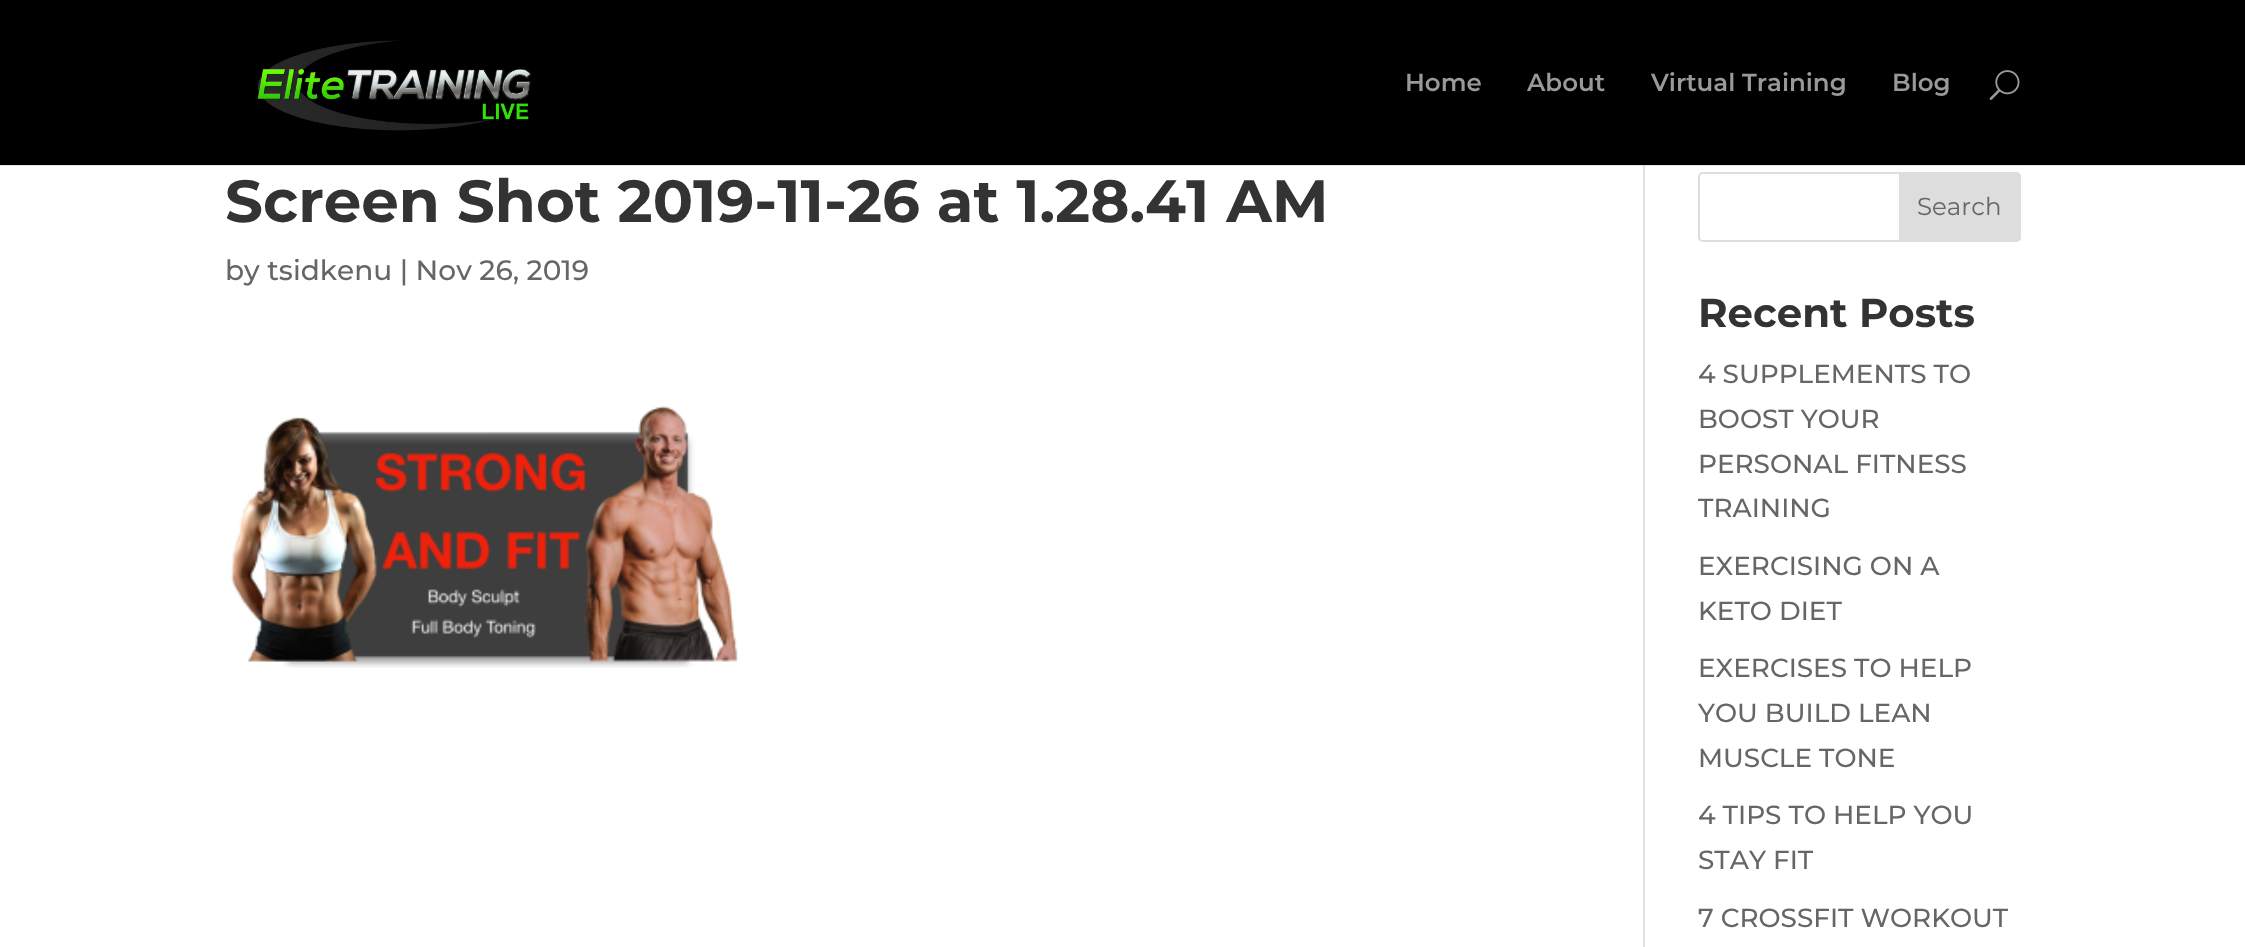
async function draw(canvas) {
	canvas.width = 2245;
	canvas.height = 947;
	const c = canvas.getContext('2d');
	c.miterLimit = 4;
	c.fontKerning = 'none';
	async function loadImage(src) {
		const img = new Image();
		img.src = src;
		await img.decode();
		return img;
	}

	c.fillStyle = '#fff';
	c.fillRect(0, 0, 2245, 947);
	c.fillStyle = '#e6e6e6';
	c.fillRect(0, 165, 2245, 1);
	c.fillStyle = '#000';
	c.fillRect(0, 0, 2245, 165);
	c.drawImage(await loadImage('img1.png'), 257, 40, 275, 91);
	c.font = '600 24.5px Montserrat';
	c.fillStyle = '#999';
	for (const [text, x, y] of [
		['Home', 1405, 91],
		['About', 1527, 91],
		['Virtual Training', 1651, 91],
		['Blog', 1892, 91],
	]) {
		c.fillText(text, x, y);
	}
	c.drawImage(await loadImage('img2.png'), 1989, 70, 31, 30);
	c.fillStyle = '#e2e2e2';
	c.fillRect(1643, 166, 2, 781);
	c.fillStyle = '#cbcbcb';
	c.fillRect(1643, 165, 2, 1);
	c.font = 'bold 59.5px Montserrat';
	c.fillStyle = '#333';
	c.fillText('Screen Shot 2019-11-26 at 1.28.41 AM', 225, 222);
	c.font = '500 28px Montserrat';
	c.fillStyle = '#666';
	c.fillText('by tsidkenu | Nov 26, 2019', 225, 280);
	c.drawImage(await loadImage('img3.png'), 230, 405, 508, 263);
	c.beginPath();
	c.roundRect(1699, 173, 321, 68, 4);
	c.strokeStyle = '#ddd';
	c.lineWidth = 2;
	c.stroke();
	c.fillStyle = '#ddd';
	c.beginPath();
	c.roundRect(1900, 173, 120, 68, [0, 4, 4, 0]);
	c.fill();
	c.stroke();
	c.font = '24.5px Montserrat';
	c.fillStyle = '#666';
	c.fillText('Search', 1917, 215);
	c.font = 'bold 40.25px Montserrat';
	c.fillStyle = '#333';
	c.fillText('Recent Posts', 1698, 327);
	c.font = '500 26.25px Montserrat';
	c.fillStyle = '#666';
	for (const [text, x, y] of [
		['4 SUPPLEMENTS TO', 1698, 383],
		['BOOST YOUR', 1698, 428],
		['PERSONAL FITNESS', 1698, 473],
		['TRAINING', 1698, 517],
		['EXERCISING ON A', 1698, 575],
		['KETO DIET', 1698, 620],
		['EXERCISES TO HELP', 1698, 677],
		['YOU BUILD LEAN', 1698, 722],
		['MUSCLE TONE', 1698, 767],
		['4 TIPS TO HELP YOU', 1698, 824],
		['STAY FIT', 1698, 869],
		['7 CROSSFIT WORKOUT', 1698, 927],
	]) {
		c.fillText(text, x, y);
	}
}

draw(document.querySelector('canvas'));
